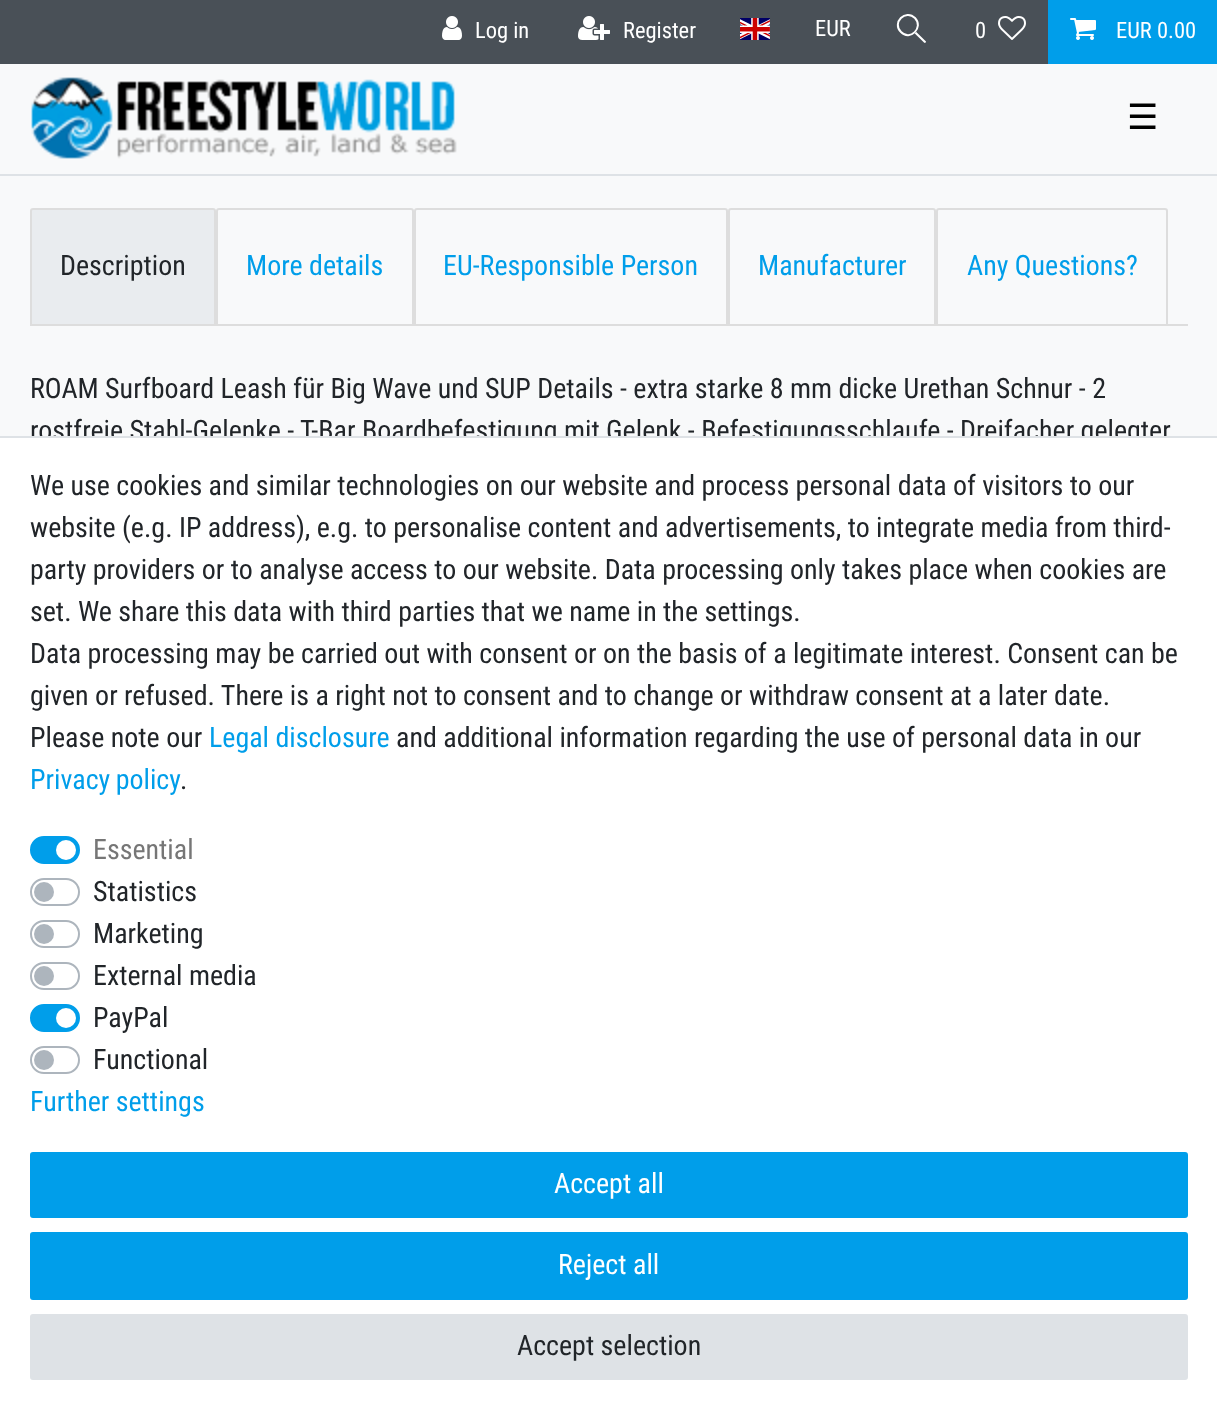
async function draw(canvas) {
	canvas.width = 1217;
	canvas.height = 1422;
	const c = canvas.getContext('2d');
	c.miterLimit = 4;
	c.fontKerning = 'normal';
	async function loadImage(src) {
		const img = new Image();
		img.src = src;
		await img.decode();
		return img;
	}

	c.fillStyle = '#f8f9fa';
	c.fillRect(0, 0, 1217, 1422);
	c.fillStyle = '#495057';
	c.fillRect(0, 0, 1048, 64);
	c.drawImage(await loadImage('img1.png'), 442, 16, 20, 24);
	c.font = '22.5px Roboto Condensed';
	c.fillStyle = '#fff';
	c.fillText('Log in', 475, 38);
	c.drawImage(await loadImage('img2.png'), 578, 16, 32, 24);
	c.fillText('Register', 623, 38);
	c.drawImage(await loadImage('img3.png'), 740, 18, 30, 22);
	c.fillText('EUR', 815, 36);
	c.beginPath();
	c.moveTo(924, 42.5);
	c.lineTo(904, 23);
	c.lineTo(904, 22);
	c.bezierCurveTo(904.5, 21.5, 905, 21, 905.5, 21.5);
	c.lineTo(926, 41.5);
	c.bezierCurveTo(926, 42.5, 925, 43.5, 924, 42.5);
	c.closePath();
	c.fill();
	c.fillStyle = '#495057';
	c.beginPath();
	c.moveTo(900, 33);
	c.bezierCurveTo(890, 22.5, 905.5, 7, 915.5, 17.5);
	c.bezierCurveTo(926, 27.5, 910.5, 43, 900, 33);
	c.closePath();
	c.fill();
	c.beginPath();
	c.moveTo(901, 32);
	c.bezierCurveTo(891.5, 23, 905.5, 8.5, 915, 18);
	c.bezierCurveTo(924, 27.5, 910, 41.5, 901, 32);
	c.closePath();
	c.strokeStyle = '#fff';
	c.lineWidth = 2;
	c.stroke();
	c.fillStyle = '#fff';
	c.fillText('0', 975, 38);
	c.drawImage(await loadImage('img4.png'), 998, 16, 28, 24);
	c.fillStyle = '#009eea';
	c.fillRect(1048, 0, 169, 64);
	c.drawImage(await loadImage('img5.png'), 1070, 18, 26, 22);
	c.fillStyle = '#fff';
	c.fillText('EUR 0.00', 1116, 38);
	c.fillStyle = '#dee2e6';
	c.fillRect(0, 174, 1217, 2);
	c.drawImage(await loadImage('img6.png'), 31, 77, 426, 82);
	c.font = '35px DejaVu Sans';
	c.fillStyle = '#000';
	c.fillText('☰', 1127, 129);
	c.fillStyle = '#ddd';
	c.fillRect(1168, 324, 20, 2);
	c.fillStyle = '#e9ecef';
	c.beginPath();
	c.roundRect(31, 209, 184, 116, [2, 2, 0, 0]);
	c.fill();
	c.strokeStyle = '#ddd';
	c.stroke();
	c.font = '28px Roboto Condensed';
	c.fillStyle = '#212529';
	c.fillText('Description', 60, 275);
	c.beginPath();
	c.roundRect(217, 209, 196, 116, [2, 2, 0, 0]);
	c.stroke();
	c.fillStyle = '#009eea';
	c.fillText('More details', 246, 275);
	c.beginPath();
	c.roundRect(415, 209, 312, 116, [2, 2, 0, 0]);
	c.stroke();
	c.fillText('EU-Responsible Person', 443, 275);
	c.beginPath();
	c.roundRect(729, 209, 206, 116, [2, 2, 0, 0]);
	c.stroke();
	c.fillText('Manufacturer', 758, 275);
	c.beginPath();
	c.roundRect(937, 209, 230, 116, [2, 2, 0, 0]);
	c.stroke();
	c.fillText('Any Questions?', 967, 275);
	c.fillStyle = '#212529';
	c.fillText('ROAM Surfboard Leash für Big Wave und SUP Details - extra starke 8 mm dicke Urethan Schnur - 2', 30, 398);
	c.fillText('rostfreie Stahl-Gelenke - T-Bar Boardbefestigung mit Gelenk - Befestigungsschlaufe - Dreifacher gelegter', 30, 440);
	c.fillStyle = '#fff';
	c.fillRect(0, 438, 1217, 984);
	c.fillStyle = '#dee2e6';
	c.fillRect(0, 436, 1217, 2);
	c.fillStyle = '#212529';
	for (const [text, x, y] of [
		['We use cookies and similar technologies on our website and process personal data of visitors to our', 30, 495],
		['website (e.g. IP address), e.g. to personalise content and advertisements, to integrate media from third-', 30, 537],
		['party providers or to analyse access to our website. Data processing only takes place when cookies are', 30, 579],
		['set. We share this data with third parties that we name in the settings.', 30, 621],
		['Data processing may be carried out with consent or on the basis of a legitimate interest. Consent can be', 30, 663],
		['given or refused. There is a right not to consent and to change or withdraw consent at a later date.', 30, 705],
		['Please note our', 30, 747],
	]) {
		c.fillText(text, x, y);
	}
	c.fillStyle = '#009eea';
	c.fillText('Legal disclosure', 209, 747);
	c.fillStyle = '#212529';
	c.fillText('and additional information regarding the use of personal data in our', 396, 747);
	c.wordSpacing = '-1px';
	c.fillStyle = '#009eea';
	c.fillText('Privacy policy', 30, 789);
	c.wordSpacing = '0px';
	c.fillStyle = '#212529';
	c.fillText('.', 180, 789);
	c.fillStyle = '#009eea';
	c.beginPath();
	c.roundRect(31, 837, 48, 26, 13);
	c.fill();
	c.strokeStyle = '#009eea';
	c.stroke();
	c.fillStyle = '#767676';
	c.fillText('Essential', 93, 859);
	c.fillStyle = '#fff';
	c.beginPath();
	c.arc(66, 850, 10, 0, 2 * Math.PI);
	c.fill();
	c.beginPath();
	c.roundRect(31, 879, 48, 26, 13);
	c.strokeStyle = '#adb5bd';
	c.stroke();
	c.fillStyle = '#212529';
	c.fillText('Statistics', 93, 901);
	c.fillStyle = '#adb5bd';
	c.beginPath();
	c.arc(44, 892, 10, 0, 2 * Math.PI);
	c.fill();
	c.beginPath();
	c.roundRect(31, 921, 48, 26, 13);
	c.stroke();
	c.fillStyle = '#212529';
	c.fillText('Marketing', 93, 943);
	c.fillStyle = '#adb5bd';
	c.beginPath();
	c.arc(44, 934, 10, 0, 2 * Math.PI);
	c.fill();
	c.beginPath();
	c.roundRect(31, 963, 48, 26, 13);
	c.stroke();
	c.fillStyle = '#212529';
	c.fillText('External media', 93, 985);
	c.fillStyle = '#adb5bd';
	c.beginPath();
	c.arc(44, 976, 10, 0, 2 * Math.PI);
	c.fill();
	c.fillStyle = '#009eea';
	c.beginPath();
	c.roundRect(31, 1005, 48, 26, 13);
	c.fill();
	c.strokeStyle = '#009eea';
	c.stroke();
	c.fillStyle = '#212529';
	c.fillText('PayPal', 93, 1027);
	c.fillStyle = '#fff';
	c.beginPath();
	c.arc(66, 1018, 10, 0, 2 * Math.PI);
	c.fill();
	c.beginPath();
	c.roundRect(31, 1047, 48, 26, 13);
	c.strokeStyle = '#adb5bd';
	c.stroke();
	c.fillStyle = '#212529';
	c.fillText('Functional', 93, 1069);
	c.fillStyle = '#adb5bd';
	c.beginPath();
	c.arc(44, 1060, 10, 0, 2 * Math.PI);
	c.fill();
	c.fillStyle = '#009eea';
	c.fillText('Further settings', 30, 1111);
	c.beginPath();
	c.roundRect(31, 1153, 1156, 64, 2);
	c.fill();
	c.strokeStyle = '#009eea';
	c.stroke();
	c.fillStyle = '#fff';
	c.fillText('Accept all', 554, 1193);
	c.fillStyle = '#009eea';
	c.beginPath();
	c.roundRect(31, 1233, 1156, 66, 2);
	c.fill();
	c.stroke();
	c.fillStyle = '#fff';
	c.fillText('Reject all', 558, 1274);
	c.fillStyle = '#dee2e6';
	c.beginPath();
	c.roundRect(31, 1315, 1156, 64, 2);
	c.fill();
	c.strokeStyle = '#dee2e6';
	c.stroke();
	c.fillStyle = '#212529';
	c.fillText('Accept selection', 517, 1355);
}

draw(document.querySelector('canvas'));
